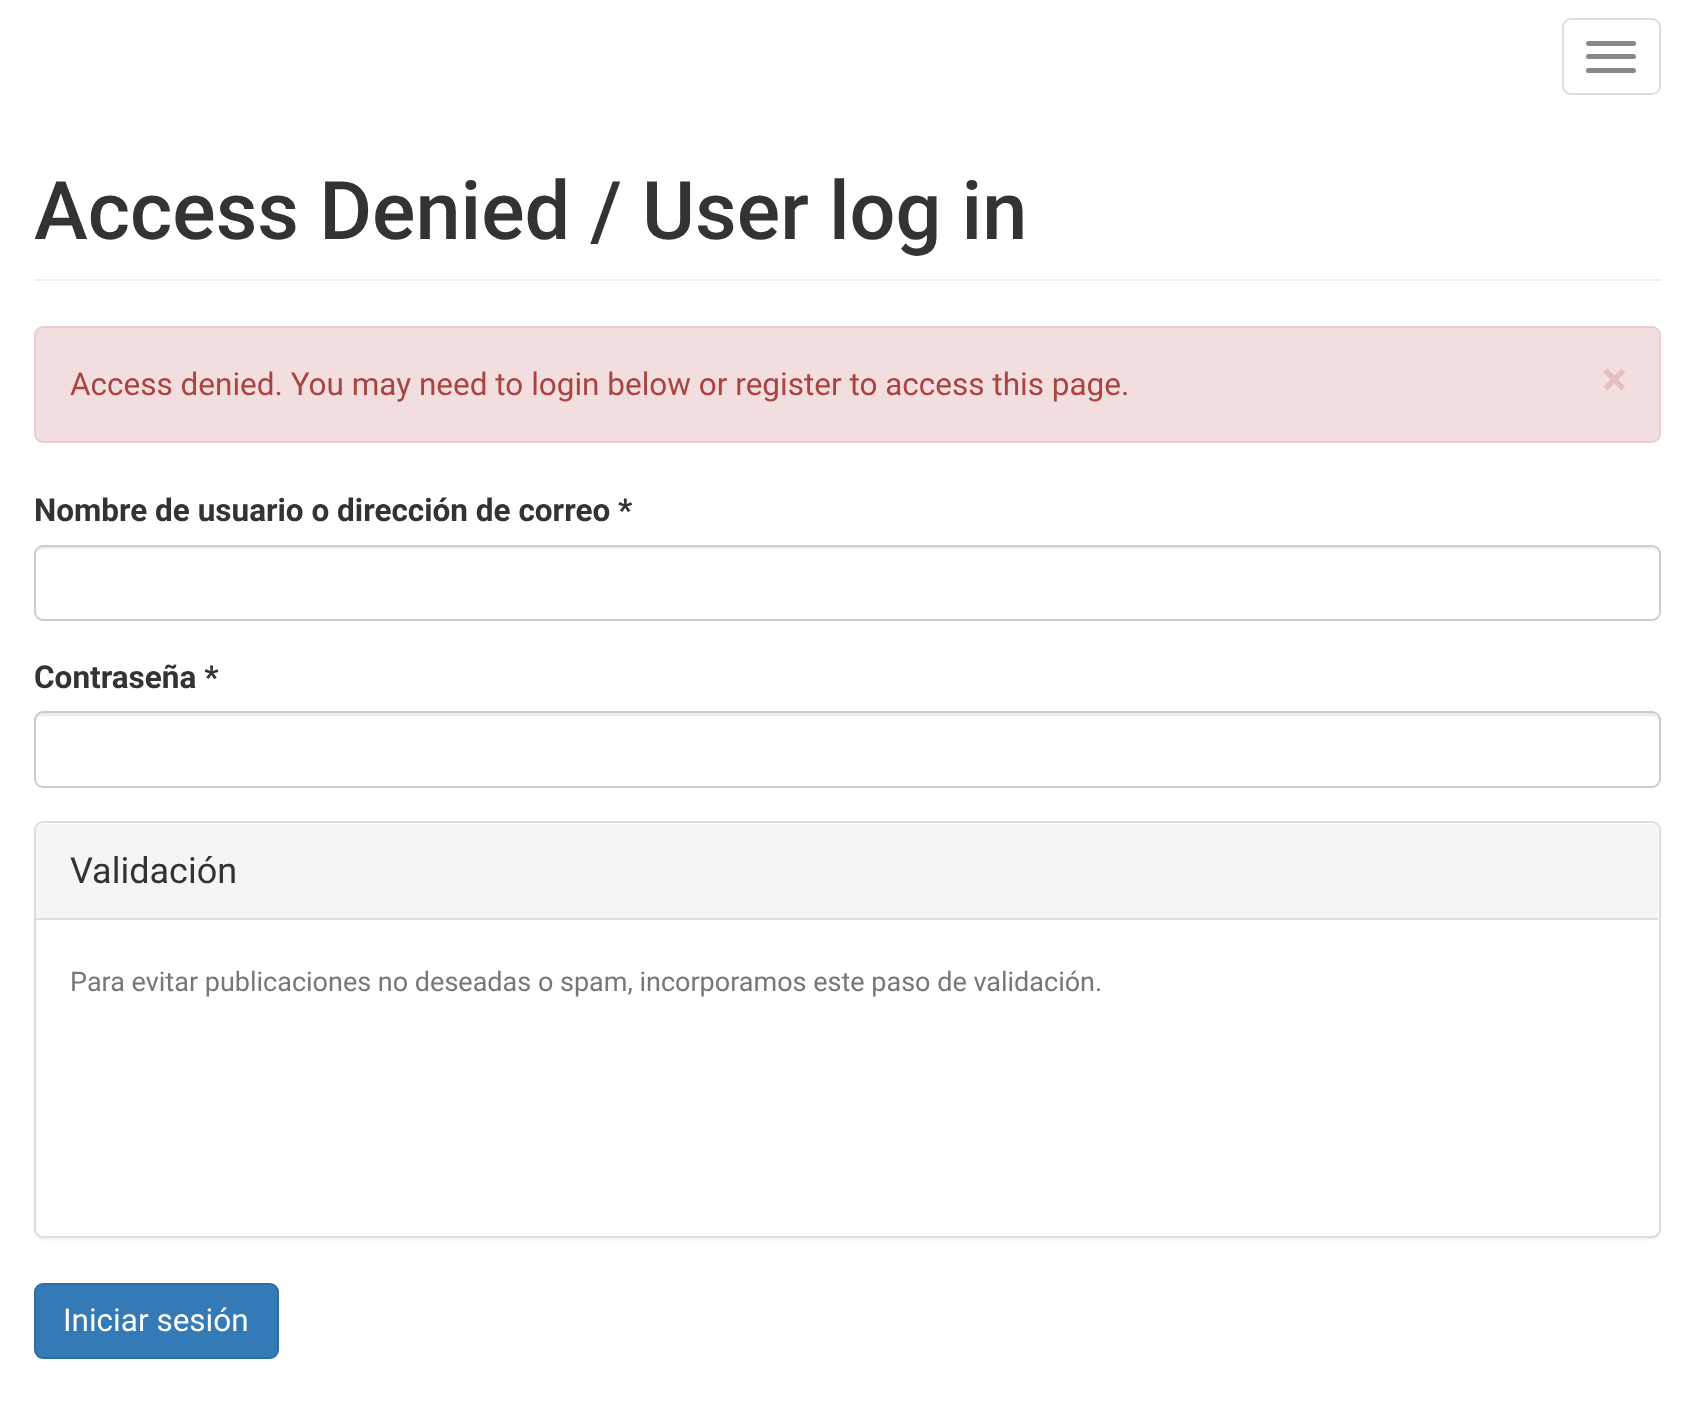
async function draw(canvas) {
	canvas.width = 1693;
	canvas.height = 1408;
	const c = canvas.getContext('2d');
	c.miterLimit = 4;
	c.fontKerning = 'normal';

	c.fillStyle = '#fff';
	c.fillRect(0, 0, 1693, 1408);
	c.beginPath();
	c.roundRect(1563, 19, 97, 75, 8);
	c.strokeStyle = '#ddd';
	c.lineWidth = 2;
	c.stroke();
	c.fillStyle = '#888';
	c.beginPath();
	c.roundRect(1586, 41, 50, 5, 2.5);
	c.fill();
	c.beginPath();
	c.roundRect(1586, 54, 50, 5, 2.5);
	c.fill();
	c.beginPath();
	c.roundRect(1586, 68, 50, 5, 2.5);
	c.fill();
	c.fillStyle = '#eee';
	c.fillRect(34, 279, 1627, 2);
	c.font = '500 81px Roboto';
	c.fillStyle = '#333';
	c.fillText('Access Denied / User log in', 34, 239);
	c.fillStyle = '#f2dede';
	c.beginPath();
	c.roundRect(35, 327, 1625, 115, 8);
	c.fill();
	c.strokeStyle = '#ebccd1';
	c.stroke();
	c.font = '31.5px Roboto';
	c.fillStyle = '#a94442';
	c.fillText('Access denied. You may need to login below or register to access this page.', 70, 395);
	c.font = 'bold 47px Roboto';
	c.fillStyle = '#e3bfbf';
	c.fillText('×', 1602, 395);
	c.font = 'bold 31.5px Roboto';
	c.fillStyle = '#333';
	c.fillText('Nombre de usuario o dirección de correo *', 34, 521);
	c.fillStyle = '#ececec';
	c.beginPath();
	c.moveTo(43, 549);
	c.lineTo(1652, 549);
	c.bezierCurveTo(1655, 549, 1658, 552, 1658, 556);
	c.bezierCurveTo(1658, 552, 1656, 547, 1651, 547);
	c.lineTo(43, 547);
	c.bezierCurveTo(38, 547, 36, 552, 36, 556);
	c.bezierCurveTo(36, 552, 39, 549, 43, 549);
	c.closePath();
	c.fill();
	c.beginPath();
	c.roundRect(35, 546, 1625, 74, 8);
	c.strokeStyle = '#ccc';
	c.stroke();
	c.fillStyle = '#333';
	c.fillText('Contraseña *', 34, 688);
	c.fillStyle = '#ececec';
	c.beginPath();
	c.moveTo(43, 716);
	c.lineTo(1652, 716);
	c.bezierCurveTo(1655, 716, 1658, 719, 1658, 722);
	c.bezierCurveTo(1658, 718, 1656, 713, 1651, 713);
	c.lineTo(43, 713);
	c.bezierCurveTo(38, 713, 36, 718, 36, 722);
	c.bezierCurveTo(36, 719, 39, 716, 43, 716);
	c.closePath();
	c.fill();
	c.beginPath();
	c.roundRect(35, 712, 1625, 75, 8);
	c.stroke();
	c.fillStyle = '#0000000d';
	c.filter = 'blur(1px)';
	c.beginPath();
	c.roundRect(34, 824, 1627, 416, 9);
	c.fill();
	c.filter = 'none';
	c.fillStyle = '#fff';
	c.beginPath();
	c.roundRect(35, 822, 1625, 415, 8);
	c.fill();
	c.strokeStyle = '#ddd';
	c.stroke();
	c.fillStyle = '#f5f5f5';
	c.beginPath();
	c.roundRect(36, 824, 1622, 96, [7, 7, 0, 0]);
	c.fill();
	c.fillStyle = '#ddd';
	c.fillRect(36, 918, 1622, 2);
	c.font = '36px Roboto';
	c.fillStyle = '#333';
	c.fillText('Validación', 70, 883);
	c.font = '27px Roboto';
	c.fillStyle = '#777';
	c.fillText('Para evitar publicaciones no deseadas o spam, incorporamos este paso de validación.', 70, 991);
	c.fillStyle = '#337ab7';
	c.beginPath();
	c.roundRect(35, 1284, 243, 74, 8);
	c.fill();
	c.strokeStyle = '#2e6da4';
	c.stroke();
	c.font = '31.5px Roboto';
	c.fillStyle = '#fff';
	c.fillText('Iniciar sesión', 63, 1331);
}

draw(document.querySelector('canvas'));
